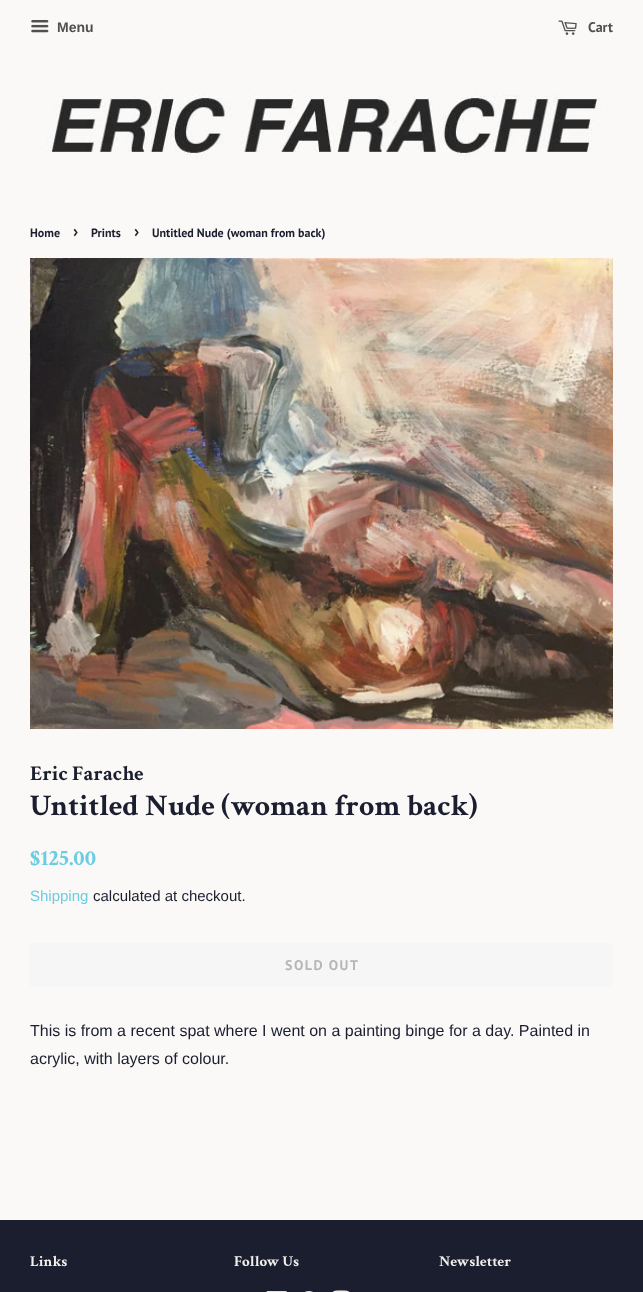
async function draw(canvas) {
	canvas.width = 643;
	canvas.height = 1292;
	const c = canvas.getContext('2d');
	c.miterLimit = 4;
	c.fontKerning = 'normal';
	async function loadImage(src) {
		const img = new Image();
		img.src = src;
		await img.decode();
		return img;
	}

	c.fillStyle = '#faf9f7';
	c.fillRect(0, 0, 643, 1292);
	c.drawImage(await loadImage('img1.png'), 31, 20, 18, 13);
	c.font = 'bold 14px Liberation Sans';
	c.fillStyle = '#505050';
	c.fillText('Menu', 57, 32);
	c.drawImage(await loadImage('img2.png'), 558, 20, 19, 15);
	c.font = 'bold 14px PT Sans';
	c.fillText('Cart', 588, 32);
	c.drawImage(await loadImage('img3.png'), 47, 95, 554, 65);
	c.font = 'bold 12px PT Sans';
	c.fillStyle = '#1b1e2f';
	c.fillText('Home', 30, 237);
	c.font = 'bold 17px PT Sans';
	c.fillText('›', 73, 237);
	c.font = 'bold 12px PT Sans';
	c.fillText('Prints', 91, 237);
	c.font = 'bold 17px PT Sans';
	c.fillText('›', 134, 237);
	c.font = 'bold 12px PT Sans';
	c.fillText('Untitled Nude (woman from back)', 152, 237);
	c.drawImage(await loadImage('img4.png'), 30, 258, 583, 471);
	c.font = 'bold 21px Crimson Text';
	c.fillText('Eric Farache', 30, 780);
	c.font = 'bold 30px Crimson Text';
	c.fillText('Untitled Nude (woman from back)', 30, 815);
	c.font = 'bold 22.5px Crimson Text';
	c.fillStyle = '#6acde2';
	c.fillText('$125.00', 30, 865);
	c.font = '15px Liberation Sans';
	c.fillText('Shipping', 30, 901);
	c.fillStyle = '#1b1e2f';
	c.fillText('calculated at checkout.', 93, 901);
	c.fillStyle = '#f6f6f6';
	c.beginPath();
	c.roundRect(30, 943, 583, 44, 2);
	c.fill();
	c.letterSpacing = '1.5px';
	c.font = 'bold 14px PT Sans';
	c.fillStyle = '#b6b6b6';
	c.fillText('SOLD OUT', 285, 970);
	c.letterSpacing = '0px';
	c.font = '16px Liberation Sans';
	c.fillStyle = '#1b1e2f';
	c.fillText('This is from a recent spat where I went on a painting binge for a day. Painted in', 30, 1036);
	c.fillText('acrylic, with layers of colour.', 30, 1064);
	c.fillRect(0, 1220, 643, 72);
	c.font = 'bold 15px Crimson Text';
	c.fillStyle = '#f2f0ee';
	c.fillText('Links', 30, 1266);
	c.fillText('Follow Us', 234, 1266);
	c.drawImage(await loadImage('img5.png'), 266, 1291, 21, 1);
	c.drawImage(await loadImage('img6.png'), 304, 1291, 9, 1);
	c.drawImage(await loadImage('img7.png'), 332, 1290, 18, 2);
	c.fillText('Newsletter', 439, 1266);
}

draw(document.querySelector('canvas'));
